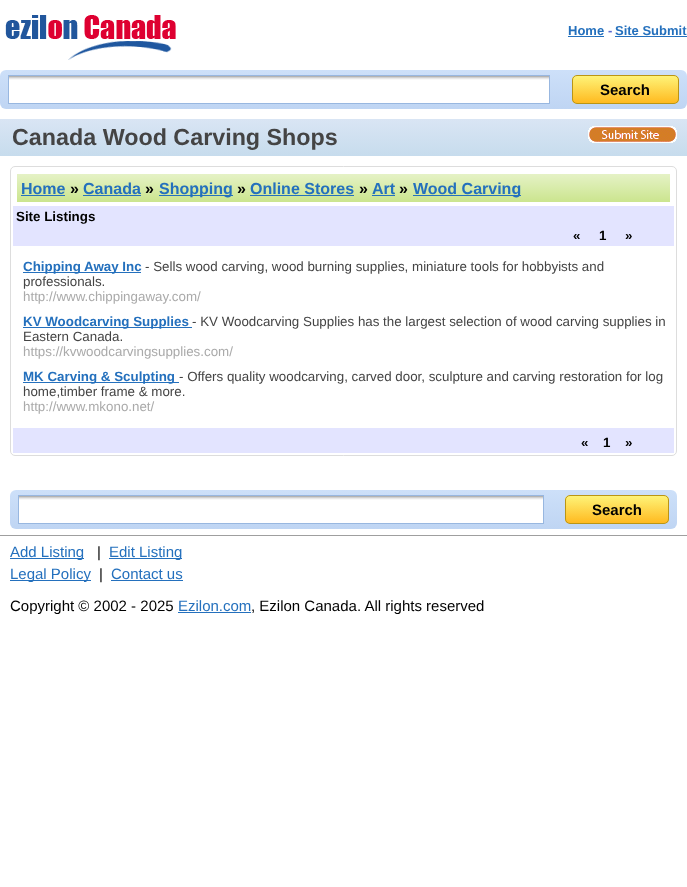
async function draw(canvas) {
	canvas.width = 687;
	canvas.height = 887;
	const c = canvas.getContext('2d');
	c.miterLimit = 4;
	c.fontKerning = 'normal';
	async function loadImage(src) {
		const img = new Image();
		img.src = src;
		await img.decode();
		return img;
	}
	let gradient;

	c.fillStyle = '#fff';
	c.fillRect(0, 0, 687, 887);
	c.drawImage(await loadImage('img1.png'), 5, 15, 171, 45);
	c.font = 'bold 13px Liberation Sans';
	c.fillStyle = '#2470bd';
	c.fillText('Home', 568, 35);
	c.fillRect(568, 36, 36, 1);
	c.fillStyle = '#5868d0';
	c.fillText('-', 608, 35);
	c.fillStyle = '#2470bd';
	c.fillText('Site Submit', 615, 35);
	c.fillRect(615, 36, 72, 1);
	gradient = c.createLinearGradient(344, 70, 344, 109);
	gradient.addColorStop(0, '#cde0f9');
	gradient.addColorStop(1, '#bfd5f3');
	c.fillStyle = gradient;
	c.beginPath();
	c.roundRect(0, 70, 687, 39, 6);
	c.fill();
	c.fillStyle = '#fff';
	c.fillRect(9, 80, 540, 23);
	c.drawImage(await loadImage('img2.png'), 9, 76, 540, 4);
	c.strokeStyle = '#98b7e0';
	c.strokeRect(8.5, 75.5, 541, 28);
	c.save();
	c.beginPath();
	c.roundRect(572, 75, 107, 29, 5);
	c.clip();
	gradient = c.createLinearGradient(626, 76, 626, 103);
	gradient.addColorStop(0, '#fef378');
	gradient.addColorStop(1, '#ffba20');
	c.fillStyle = gradient;
	c.fillRect(572, 76, 107, 27);
	c.restore();
	c.beginPath();
	c.roundRect(572.5, 75.5, 106, 28, 4.5);
	c.strokeStyle = '#ba9515';
	c.stroke();
	c.font = 'bold 15px Liberation Sans';
	c.fillStyle = '#000';
	c.fillText('Search', 600, 95);
	gradient = c.createLinearGradient(344, 119, 344, 156);
	gradient.addColorStop(0, '#d9e5f4');
	gradient.addColorStop(1, '#c7dced');
	c.fillStyle = gradient;
	c.fillRect(0, 119, 687, 37);
	c.font = 'bold 23.3px Liberation Sans';
	c.fillStyle = '#444';
	c.fillText('Canada Wood Carving Shops', 12, 145);
	c.drawImage(await loadImage('img3.png'), 588, 126, 89, 17);
	c.beginPath();
	c.roundRect(10.5, 166.5, 666, 289, 4.5);
	c.strokeStyle = '#ddd';
	c.stroke();
	gradient = c.createLinearGradient(344, 174, 344, 202);
	gradient.addColorStop(0, '#e5f2c6');
	gradient.addColorStop(1, '#cbe58e');
	c.fillStyle = gradient;
	c.fillRect(17, 174, 653, 28);
	c.font = 'bold 16px Liberation Sans';
	c.fillStyle = '#2470bd';
	c.fillText('Home', 21, 194);
	c.fillRect(21, 195, 44, 1);
	c.fillStyle = '#000';
	c.fillText('»', 70, 194);
	c.fillStyle = '#2470bd';
	c.fillText('Canada', 83, 194);
	c.fillRect(83, 195, 58, 1);
	c.fillStyle = '#000';
	c.fillText('»', 145, 194);
	c.fillStyle = '#2470bd';
	c.fillRect(159, 195, 74, 1);
	c.fillText('Shopping', 159, 194);
	c.fillStyle = '#000';
	c.fillText('»', 237, 194);
	c.fillStyle = '#2470bd';
	c.fillText('Online Stores', 250, 194);
	c.fillRect(250, 195, 104, 1);
	c.fillStyle = '#000';
	c.fillText('»', 359, 194);
	c.fillStyle = '#2470bd';
	c.fillText('Art', 372, 194);
	c.fillRect(372, 195, 23, 1);
	c.fillStyle = '#000';
	c.fillText('»', 399, 194);
	c.fillStyle = '#2470bd';
	c.fillRect(413, 195, 108, 1);
	c.fillText('Wood Carving', 413, 194);
	c.fillStyle = '#e3e4ff';
	c.fillRect(13, 206, 661, 40);
	c.font = 'bold 13.35px Liberation Sans';
	c.fillStyle = '#000';
	for (const [text, x, y] of [
		['Site Listings', 16, 221],
		['«', 573, 240],
		['1', 599, 240],
		['»', 625, 240],
	]) {
		c.fillText(text, x, y);
	}
	c.fillStyle = '#2470bd';
	c.fillRect(23, 272, 118, 1);
	c.fillText('Chipping Away Inc', 23, 271);
	c.font = '13.35px Liberation Sans';
	c.fillStyle = '#444';
	c.fillText('- Sells wood carving, wood burning supplies, miniature tools for hobbyists and', 145, 271);
	c.fillText('professionals.', 23, 286);
	c.fillStyle = '#aaa';
	c.fillText('http://www.chippingaway.com/', 23, 301);
	c.fillStyle = '#2470bd';
	c.fillRect(23, 327, 169, 1);
	c.font = 'bold 13.35px Liberation Sans';
	c.fillText('KV Woodcarving Supplies', 23, 326);
	c.font = '13.35px Liberation Sans';
	c.fillStyle = '#444';
	c.fillText('- KV Woodcarving Supplies has the largest selection of wood carving supplies in', 192, 326);
	c.fillText('Eastern Canada.', 23, 341);
	c.fillStyle = '#aaa';
	c.fillText('https://kvwoodcarvingsupplies.com/', 23, 356);
	c.fillStyle = '#2470bd';
	c.fillRect(23, 382, 156, 1);
	c.font = 'bold 13.35px Liberation Sans';
	c.fillText('MK Carving & Sculpting', 23, 381);
	c.font = '13.35px Liberation Sans';
	c.fillStyle = '#444';
	c.fillText('- Offers quality woodcarving, carved door, sculpture and carving restoration for log', 179, 381);
	c.fillText('home,timber frame & more.', 23, 396);
	c.fillStyle = '#aaa';
	c.fillText('http://www.mkono.net/', 23, 411);
	c.fillStyle = '#e3e4ff';
	c.fillRect(13, 428, 661, 25);
	c.font = 'bold 13.35px Liberation Sans';
	c.fillStyle = '#000';
	for (const [text, x, y] of [
		['«', 581, 447],
		['1', 603, 447],
		['»', 625, 447],
	]) {
		c.fillText(text, x, y);
	}
	gradient = c.createLinearGradient(344, 490, 344, 529);
	gradient.addColorStop(0, '#cde0f9');
	gradient.addColorStop(1, '#bfd5f3');
	c.fillStyle = gradient;
	c.beginPath();
	c.roundRect(10, 490, 667, 39, 6);
	c.fill();
	c.fillStyle = '#fff';
	c.fillRect(19, 500, 524, 23);
	c.drawImage(await loadImage('img4.png'), 19, 496, 524, 4);
	c.strokeStyle = '#98b7e0';
	c.strokeRect(18.5, 495.5, 525, 28);
	c.save();
	c.beginPath();
	c.roundRect(565, 495, 104, 29, 5);
	c.clip();
	gradient = c.createLinearGradient(617, 496, 617, 523);
	gradient.addColorStop(0, '#fef378');
	gradient.addColorStop(1, '#ffba20');
	c.fillStyle = gradient;
	c.fillRect(565, 496, 104, 27);
	c.restore();
	c.beginPath();
	c.roundRect(565.5, 495.5, 103, 28, 4.5);
	c.strokeStyle = '#ba9515';
	c.stroke();
	c.font = 'bold 15px Liberation Sans';
	c.fillStyle = '#000';
	c.fillText('Search', 592, 515);
	c.fillStyle = '#9f9f9f';
	c.fillRect(0, 535, 687, 1);
	c.fillStyle = '#2470bd';
	c.fillRect(10, 558, 74, 1);
	c.font = '15px Liberation Sans';
	c.fillText('Add Listing', 10, 557);
	c.fillStyle = '#000';
	c.fillText('|', 97, 557);
	c.fillStyle = '#2470bd';
	c.fillRect(109, 558, 73, 1);
	c.fillText('Edit Listing', 109, 557);
	c.fillRect(10, 580, 81, 1);
	c.fillText('Legal Policy', 10, 579);
	c.fillStyle = '#000';
	c.fillText('|', 99, 579);
	c.fillStyle = '#2470bd';
	c.fillText('Contact us', 111, 579);
	c.fillRect(111, 580, 72, 1);
	c.fillStyle = '#000';
	c.fillText('Copyright © 2002 - 2025', 10, 611);
	c.fillStyle = '#2470bd';
	c.fillText('Ezilon.com', 178, 611);
	c.fillRect(178, 612, 73, 1);
	c.fillStyle = '#000';
	c.fillText(', Ezilon Canada. All rights reserved', 251, 611);
}

draw(document.querySelector('canvas'));
